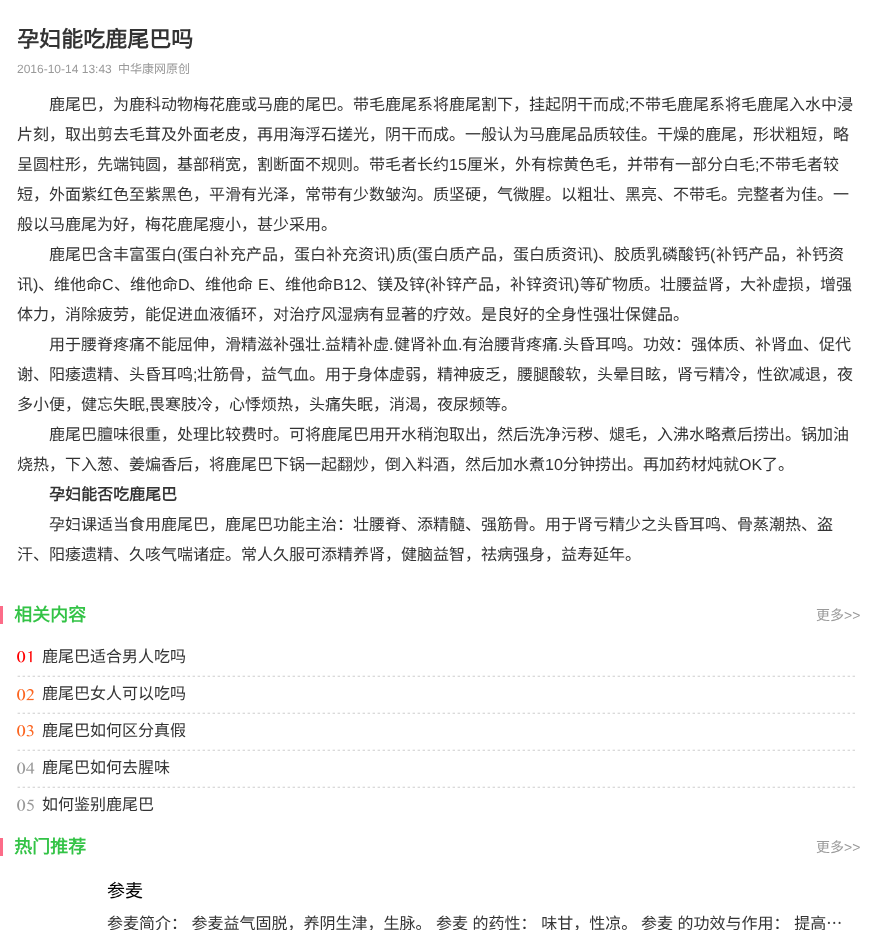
async function draw(canvas) {
	canvas.width = 874;
	canvas.height = 930;
	const c = canvas.getContext('2d');
	c.miterLimit = 4;
	c.fontKerning = 'normal';
	async function loadImage(src) {
		const img = new Image();
		img.src = src;
		await img.decode();
		return img;
	}

	c.fillStyle = '#fff';
	c.fillRect(0, 0, 874, 930);
	c.font = 'bold 22px Noto Sans CJK SC';
	c.fillStyle = '#333';
	c.fillText('孕妇能吃鹿尾巴吗', 17, 47);
	c.font = '12px Liberation Sans';
	c.fillStyle = '#999';
	c.fillText('2016-10-14 13:43', 17, 73);
	c.font = '12px Noto Sans CJK SC';
	c.fillText('中华康网原创', 118, 73);
	c.font = '16px Noto Sans CJK SC';
	c.fillStyle = '#333';
	c.fillText('鹿尾巴，为鹿科动物梅花鹿或马鹿的尾巴。带毛鹿尾系将鹿尾割下，挂起阴干而成', 49, 110);
	c.font = '16px Liberation Sans';
	c.fillText(';', 625, 110);
	c.font = '16px Noto Sans CJK SC';
	for (const [text, x, y] of [
		['不带毛鹿尾系将毛鹿尾入水中浸', 629, 110],
		['片刻，取出剪去毛茸及外面老皮，再用海浮石搓光，阴干而成。一般认为马鹿尾品质较佳。干燥的鹿尾，形状粗短，略', 17, 140],
		['呈圆柱形，先端钝圆，基部稍宽，割断面不规则。带毛者长约', 17, 170],
	]) {
		c.fillText(text, x, y);
	}
	c.font = '16px Liberation Sans';
	c.fillText('15', 449, 170);
	c.font = '16px Noto Sans CJK SC';
	c.fillText('厘米，外有棕黄色毛，并带有一部分白毛', 467, 170);
	c.font = '16px Liberation Sans';
	c.fillText(';', 755, 170);
	c.font = '16px Noto Sans CJK SC';
	for (const [text, x, y] of [
		['不带毛者较', 759, 170],
		['短，外面紫红色至紫黑色，平滑有光泽，常带有少数皱沟。质坚硬，气微腥。以粗壮、黑亮、不带毛。完整者为佳。一', 17, 200],
		['般以马鹿尾为好，梅花鹿尾瘦小，甚少采用。', 17, 230],
		['鹿尾巴含丰富蛋白', 49, 260],
	]) {
		c.fillText(text, x, y);
	}
	c.font = '16px Liberation Sans';
	c.fillText('(', 177, 260);
	c.font = '16px Noto Sans CJK SC';
	c.fillText('蛋白补充产品，蛋白补充资讯', 182, 260);
	c.font = '16px Liberation Sans';
	c.fillText(')', 390, 260);
	c.font = '16px Noto Sans CJK SC';
	c.fillText('质', 396, 260);
	c.font = '16px Liberation Sans';
	c.fillText('(', 412, 260);
	c.font = '16px Noto Sans CJK SC';
	c.fillText('蛋白质产品，蛋白质资讯', 417, 260);
	c.font = '16px Liberation Sans';
	c.fillText(')', 593, 260);
	c.font = '16px Noto Sans CJK SC';
	c.fillText('、胶质乳磷酸钙', 598, 260);
	c.font = '16px Liberation Sans';
	c.fillText('(', 710, 260);
	c.font = '16px Noto Sans CJK SC';
	c.fillText('补钙产品，补钙资', 716, 260);
	c.fillText('讯', 17, 290);
	c.font = '16px Liberation Sans';
	c.fillText(')', 33, 290);
	c.font = '16px Noto Sans CJK SC';
	c.fillText('、维他命', 38, 290);
	c.font = '16px Liberation Sans';
	c.fillText('C', 102, 290);
	c.font = '16px Noto Sans CJK SC';
	c.fillText('、维他命', 114, 290);
	c.font = '16px Liberation Sans';
	c.fillText('D', 178, 290);
	c.font = '16px Noto Sans CJK SC';
	c.fillText('、维他命', 189, 290);
	c.font = '16px Liberation Sans';
	c.fillText('E', 258, 290);
	c.font = '16px Noto Sans CJK SC';
	c.fillText('、维他命', 269, 290);
	c.font = '16px Liberation Sans';
	c.fillText('B12', 333, 290);
	c.font = '16px Noto Sans CJK SC';
	c.fillText('、镁及锌', 361, 290);
	c.font = '16px Liberation Sans';
	c.fillText('(', 425, 290);
	c.font = '16px Noto Sans CJK SC';
	c.fillText('补锌产品，补锌资讯', 430, 290);
	c.font = '16px Liberation Sans';
	c.fillText(')', 574, 290);
	c.font = '16px Noto Sans CJK SC';
	for (const [text, x, y] of [
		['等矿物质。壮腰益肾，大补虚损，增强', 580, 290],
		['体力，消除疲劳，能促进血液循环，对治疗风湿病有显著的疗效。是良好的全身性强壮保健品。', 17, 320],
		['用于腰脊疼痛不能屈伸，滑精滋补强壮', 49, 350],
	]) {
		c.fillText(text, x, y);
	}
	c.font = '16px Liberation Sans';
	c.fillText('.', 321, 350);
	c.font = '16px Noto Sans CJK SC';
	c.fillText('益精补虚', 325, 350);
	c.font = '16px Liberation Sans';
	c.fillText('.', 389, 350);
	c.font = '16px Noto Sans CJK SC';
	c.fillText('健肾补血', 394, 350);
	c.font = '16px Liberation Sans';
	c.fillText('.', 458, 350);
	c.font = '16px Noto Sans CJK SC';
	c.fillText('有治腰背疼痛', 462, 350);
	c.font = '16px Liberation Sans';
	c.fillText('.', 558, 350);
	c.font = '16px Noto Sans CJK SC';
	c.fillText('头昏耳鸣。功效：强体质、补肾血、促代', 563, 350);
	c.fillText('谢、阳痿遗精、头昏耳鸣', 17, 380);
	c.font = '16px Liberation Sans';
	c.fillText(';', 193, 380);
	c.font = '16px Noto Sans CJK SC';
	c.fillText('壮筋骨，益气血。用于身体虚弱，精神疲乏，腰腿酸软，头晕目眩，肾亏精冷，性欲减退，夜', 197, 380);
	c.fillText('多小便，健忘失眠', 17, 410);
	c.font = '16px Liberation Sans';
	c.fillText(',', 145, 410);
	c.font = '16px Noto Sans CJK SC';
	for (const [text, x, y] of [
		['畏寒肢冷，心悸烦热，头痛失眠，消渴，夜尿频等。', 149, 410],
		['鹿尾巴膻味很重，处理比较费时。可将鹿尾巴用开水稍泡取出，然后洗净污秽、煺毛，入沸水略煮后捞出。锅加油', 49, 440],
		['烧热，下入葱、姜煸香后，将鹿尾巴下锅一起翻炒，倒入料酒，然后加水煮', 17, 470],
	]) {
		c.fillText(text, x, y);
	}
	c.font = '16px Liberation Sans';
	c.fillText('10', 545, 470);
	c.font = '16px Noto Sans CJK SC';
	c.fillText('分钟捞出。再加药材炖就', 563, 470);
	c.font = '16px Liberation Sans';
	c.fillText('OK', 739, 470);
	c.font = '16px Noto Sans CJK SC';
	c.fillText('了。', 762, 470);
	c.font = 'bold 16px Noto Sans CJK SC';
	c.fillText('孕妇能否吃鹿尾巴', 49, 500);
	c.font = '16px Noto Sans CJK SC';
	c.fillText('孕妇课适当食用鹿尾巴，鹿尾巴功能主治：壮腰脊、添精髓、强筋骨。用于肾亏精少之头昏耳鸣、骨蒸潮热、盗', 49, 530);
	c.fillText('汗、阳痿遗精、久咳气喘诸症。常人久服可添精养肾，健脑益智，祛病强身，益寿延年。', 17, 560);
	c.fillStyle = '#fc6c88';
	c.fillRect(0, 606, 3, 18);
	c.font = 'bold 18px Noto Sans CJK SC';
	c.fillStyle = '#33c346';
	c.fillText('相关内容', 14, 621);
	c.font = '14px Noto Sans CJK SC';
	c.fillStyle = '#999';
	c.fillText('更多', 816, 620);
	c.font = '14px Liberation Sans';
	c.fillText('>>', 844, 620);
	c.drawImage(await loadImage('img1.png'), 17, 651, 18, 160);
	c.font = '16px Noto Sans CJK SC';
	c.fillStyle = '#333';
	c.fillText('鹿尾巴适合男人吃吗', 42, 662);
	c.drawImage(await loadImage('img2.png'), 17, 675, 838, 2);
	c.fillText('鹿尾巴女人可以吃吗', 42, 699);
	c.drawImage(await loadImage('img2.png'), 17, 712, 838, 2);
	c.fillText('鹿尾巴如何区分真假', 42, 736);
	c.drawImage(await loadImage('img2.png'), 17, 749, 838, 2);
	c.fillText('鹿尾巴如何去腥味', 42, 773);
	c.drawImage(await loadImage('img2.png'), 17, 786, 838, 2);
	c.fillText('如何鉴别鹿尾巴', 42, 810);
	c.fillStyle = '#fc6c88';
	c.fillRect(0, 838, 3, 18);
	c.font = 'bold 18px Noto Sans CJK SC';
	c.fillStyle = '#33c346';
	c.fillText('热门推荐', 14, 853);
	c.font = '14px Noto Sans CJK SC';
	c.fillStyle = '#999';
	c.fillText('更多', 816, 852);
	c.font = '14px Liberation Sans';
	c.fillText('>>', 844, 852);
	c.font = '18px Noto Sans CJK SC';
	c.fillStyle = '#000';
	c.fillText('参麦', 107, 897);
	c.wordSpacing = '1px';
	c.font = '16px Noto Sans CJK SC';
	c.fillStyle = '#333';
	for (const [text, x, y] of [
		['参麦简介： 参麦益气固脱，养阴生津，生脉。', 107, 929],
		['参麦 的药性： 味甘，性凉。', 436, 929],
		['参麦 的功效与作用： 提高…', 641, 929],
	]) {
		c.fillText(text, x, y);
	}
}

draw(document.querySelector('canvas'));
